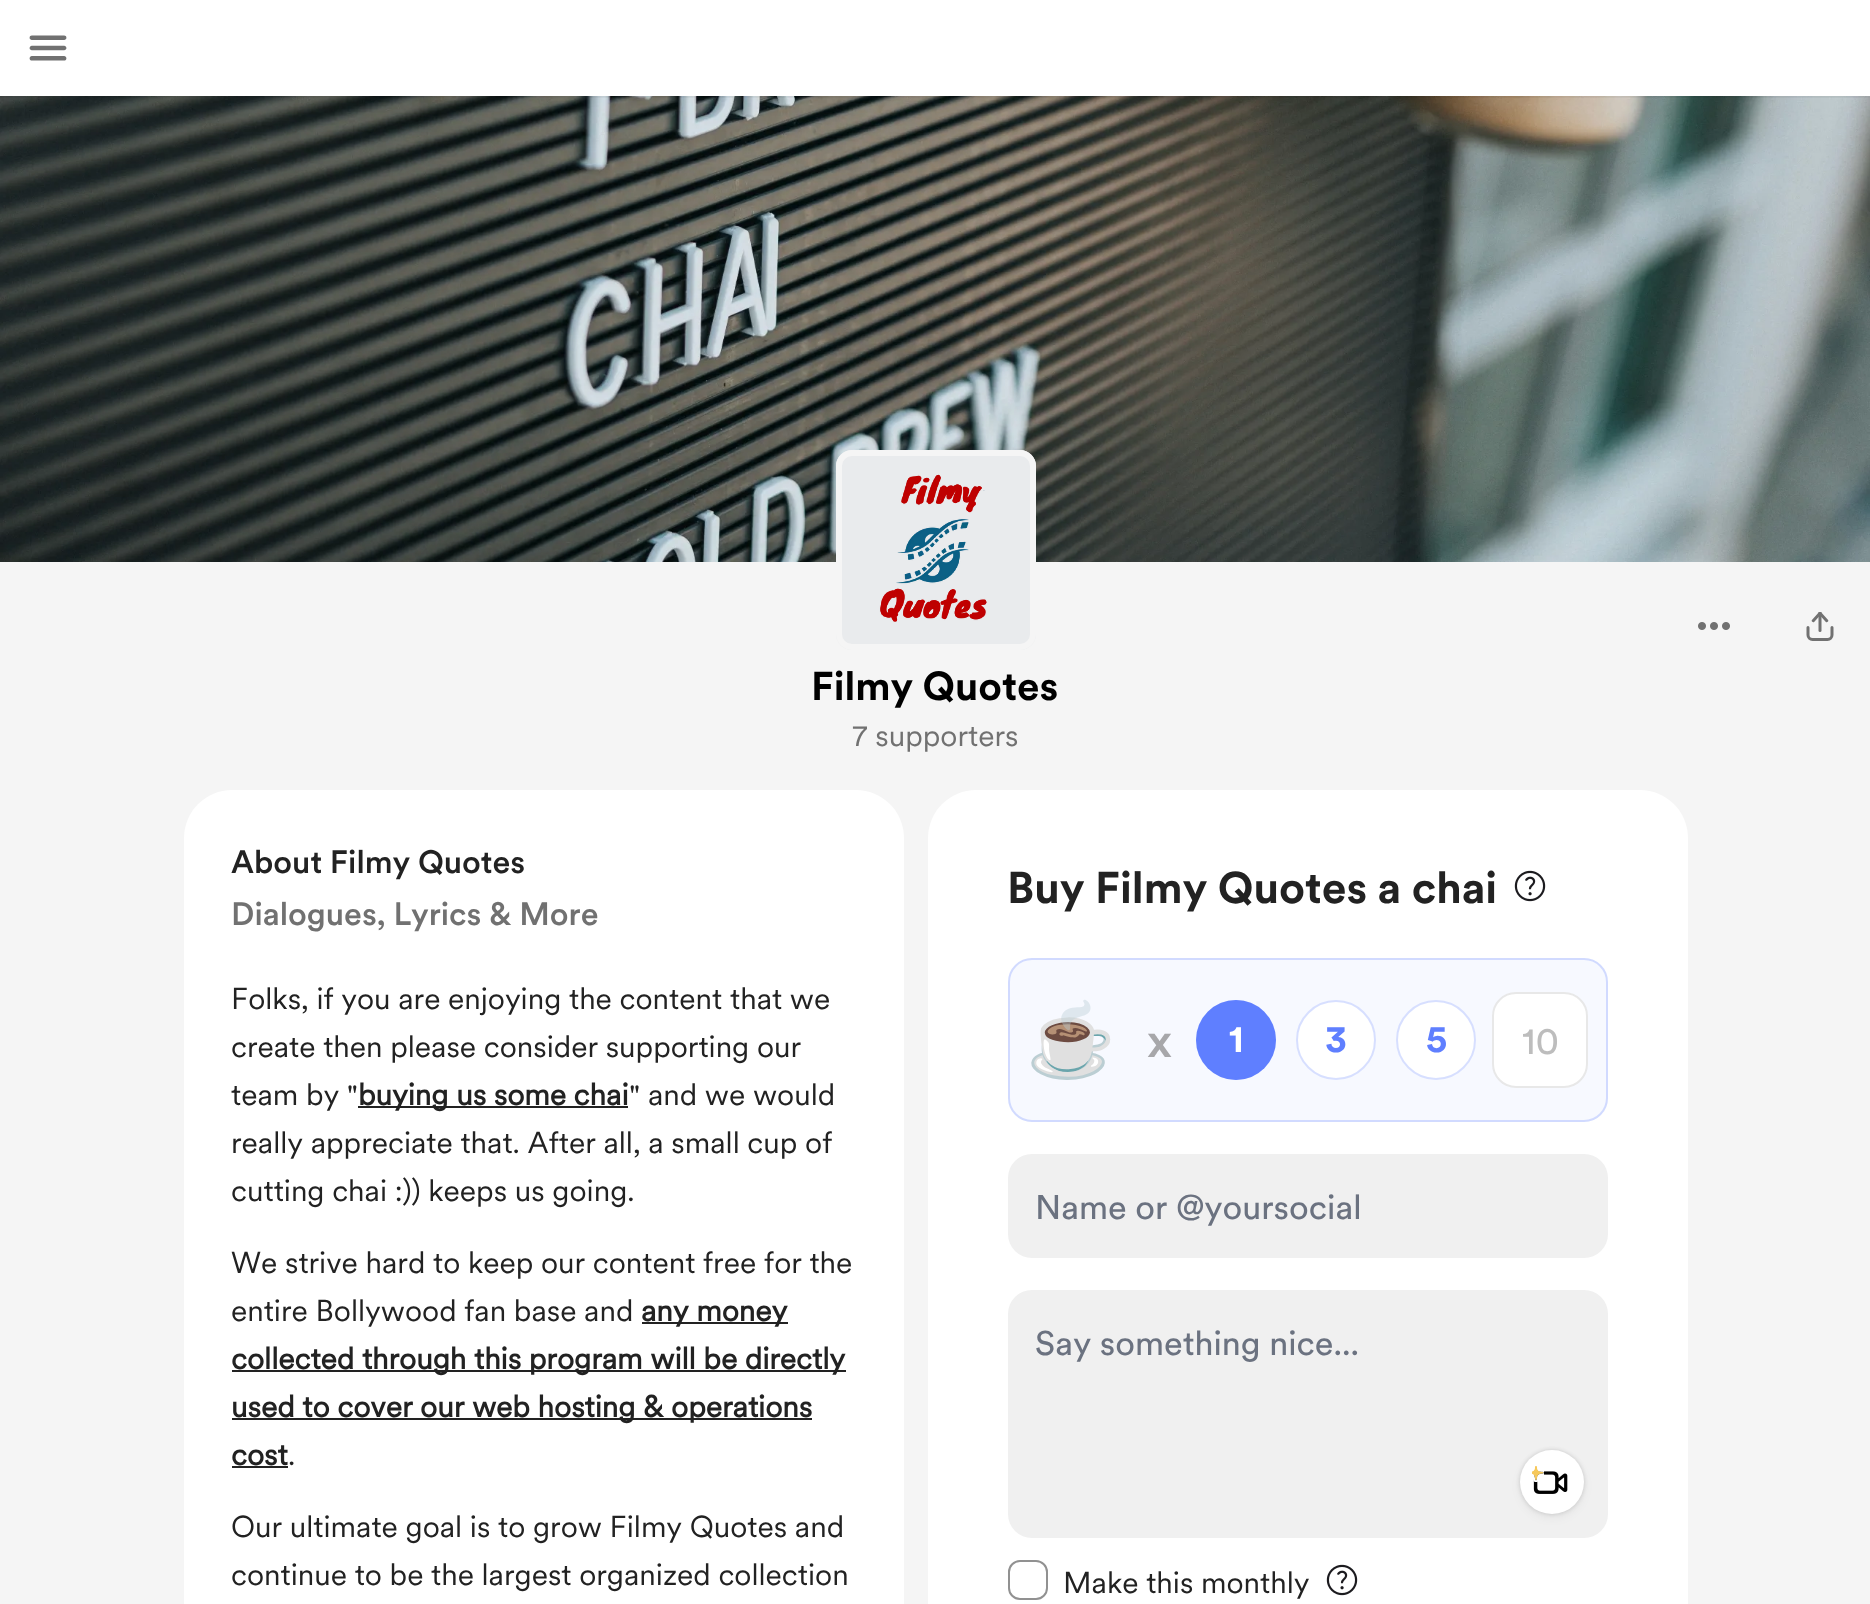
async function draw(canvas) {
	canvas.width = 1870;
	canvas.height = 1604;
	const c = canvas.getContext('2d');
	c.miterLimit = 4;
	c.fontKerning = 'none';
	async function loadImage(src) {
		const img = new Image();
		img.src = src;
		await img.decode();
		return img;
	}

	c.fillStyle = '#fff';
	c.fillRect(0, 0, 1870, 1604);
	c.drawImage(await loadImage('img2.png'), 0, 96, 1870, 466);
	c.save();
	c.beginPath();
	c.rect(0, 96, 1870, 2);
	c.clip();
	c.fillStyle = '#0000000f';
	c.filter = 'blur(1px)';
	c.beginPath();
	c.rect(0, 2, 1870, 96);
	c.fill();
	c.filter = 'none';
	c.restore();
	c.drawImage(await loadImage('img1.png'), 29, 35, 38, 26);
	c.fillStyle = '#f5f5f5';
	c.fillRect(0, 562, 1870, 1042);
	c.drawImage(await loadImage('img3.png'), 1698, 622, 32, 8);
	c.drawImage(await loadImage('img4.png'), 1806, 612, 28, 29);
	c.drawImage(await loadImage('img5.png'), 836, 450, 200, 200);
	c.beginPath();
	c.roundRect(839, 453, 194, 194, 13);
	c.strokeStyle = '#f5f5f5';
	c.lineWidth = 6;
	c.stroke();
	c.drawImage(await loadImage('img6.png'), 880, 474, 107, 148);
	c.font = 'bold 40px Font';
	c.fillStyle = '#000';
	c.fillText('Filmy Quotes', 811, 700);
	c.font = '30px "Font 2"';
	c.fillStyle = '#717171';
	c.fillText('7 supporters', 852, 746);
	c.fillStyle = '#fff';
	c.beginPath();
	c.roundRect(184, 790, 720, 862, 48);
	c.fill();
	c.font = '500 32px Font';
	c.fillStyle = '#222';
	c.fillText('About Filmy Quotes', 231, 873);
	c.fillStyle = '#717171';
	c.fillText('Dialogues, Lyrics & More', 231, 925);
	c.font = '30px "Font 2"';
	c.fillStyle = '#222';
	for (const [text, x, y] of [
		['Folks, if you are enjoying the content', 231, 1009],
		['that we', 730, 1009],
		['create then please consider supporting our', 231, 1057],
		['team by "', 231, 1105],
	]) {
		c.fillText(text, x, y);
	}
	c.fillRect(358, 1106, 270, 2);
	c.font = 'bold 30px "Font 2"';
	c.fillText('buying us some chai', 358, 1105);
	c.font = '30px "Font 2"';
	for (const [text, x, y] of [
		['" and we would', 629, 1105],
		['really appreciate that. After all, a small cup of', 231, 1153],
		['cutting chai :)) keeps us going.', 231, 1201],
		['We strive hard to keep our content free', 231, 1273],
		['for the', 764, 1273],
		['entire Bollywood fan base and', 231, 1321],
	]) {
		c.fillText(text, x, y);
	}
	c.fillRect(642, 1322, 146, 2);
	c.font = 'bold 30px "Font 2"';
	c.fillText('any money', 641, 1321);
	c.fillRect(232, 1370, 614, 2);
	c.fillText('collected through this program will be directly', 231, 1369);
	c.fillRect(232, 1418, 580, 2);
	c.fillText('used to cover our web hosting & operations', 231, 1417);
	c.fillText('cost', 231, 1465);
	c.fillRect(232, 1466, 56, 2);
	c.font = '30px "Font 2"';
	for (const [text, x, y] of [
		['.', 288, 1465],
		['Our ultimate goal is to grow Filmy Quotes and', 231, 1537],
		['continue to be the largest organized collection', 231, 1585],
	]) {
		c.fillText(text, x, y);
	}
	c.fillStyle = '#fff';
	c.beginPath();
	c.roundRect(928, 790, 760, 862, 48);
	c.fill();
	c.font = 'bold 44px Font';
	c.fillStyle = '#222';
	c.fillText('Buy Filmy Quotes a chai', 1007, 903);
	c.drawImage(await loadImage('img7.png'), 1514, 870, 32, 32);
	c.fillStyle = '#f7f9ff';
	c.beginPath();
	c.roundRect(1008, 958, 600, 164, 24);
	c.fill();
	c.beginPath();
	c.roundRect(1009, 959, 598, 162, 23);
	c.strokeStyle = '#5f7fff40';
	c.lineWidth = 2;
	c.stroke();
	c.font = '72px Noto Color Emoji';
	c.fillStyle = '#000';
	c.fillText('☕', 1026, 1065);
	c.font = '500 48px Font';
	c.fillStyle = '#a7a7aa';
	c.fillText('x', 1147, 1057);
	c.fillStyle = '#5f7fff';
	c.beginPath();
	c.arc(1236, 1040, 40, 0, 2 * Math.PI);
	c.fill();
	c.beginPath();
	c.arc(1236, 1040, 39, 0, 2 * Math.PI);
	c.stroke();
	c.font = 'bold 38px Font';
	c.fillStyle = '#fff';
	c.fillText('1', 1229, 1052);
	c.beginPath();
	c.arc(1336, 1040, 40, 0, 2 * Math.PI);
	c.fill();
	c.beginPath();
	c.arc(1336, 1040, 39, 0, 2 * Math.PI);
	c.stroke();
	c.fillStyle = '#5f7fff';
	c.fillText('3', 1325, 1052);
	c.fillStyle = '#fff';
	c.beginPath();
	c.arc(1436, 1040, 40, 0, 2 * Math.PI);
	c.fill();
	c.beginPath();
	c.arc(1436, 1040, 39, 0, 2 * Math.PI);
	c.stroke();
	c.fillStyle = '#5f7fff';
	c.fillText('5', 1426, 1052);
	c.fillStyle = '#fff';
	c.beginPath();
	c.roundRect(1492, 992, 96, 96, 24);
	c.fill();
	c.beginPath();
	c.roundRect(1493, 993, 94, 94, 23);
	c.strokeStyle = '#2222221a';
	c.stroke();
	c.font = '38px Font';
	c.fillStyle = '#bdbdbd';
	c.fillText('10', 1522, 1054);
	c.fillStyle = '#f0f0f0';
	c.beginPath();
	c.roundRect(1008, 1154, 600, 104, 24);
	c.fill();
	c.font = '34px Font';
	c.fillStyle = '#6b7280';
	c.fillText('Name or @yoursocial', 1035, 1219);
	c.fillStyle = '#f0f0f0';
	c.beginPath();
	c.roundRect(1008, 1290, 600, 248, 24);
	c.fill();
	c.fillStyle = '#6b7280';
	c.fillText('Say something nice...', 1035, 1355);
	c.fillStyle = '#0000000d';
	c.filter = 'blur(5px)';
	c.beginPath();
	c.roundRect(1520, 1454, 64, 64, 32);
	c.fill();
	c.filter = 'none';
	c.fillStyle = '#00000026';
	c.filter = 'blur(2px)';
	c.beginPath();
	c.roundRect(1520, 1450, 64, 64, 32);
	c.fill();
	c.filter = 'none';
	c.fillStyle = '#fff';
	c.beginPath();
	c.arc(1552, 1482, 32, 0, 2 * Math.PI);
	c.fill();
	c.drawImage(await loadImage('img9.png'), 1533, 1471, 35, 23);
	c.drawImage(await loadImage('img8.png'), 1532, 1466, 12, 16);
	c.beginPath();
	c.roundRect(1009, 1561, 38, 38, 11);
	c.strokeStyle = '#919191';
	c.stroke();
	c.font = '30px "Font 2"';
	c.fillStyle = '#222';
	c.fillText('Make this monthly', 1063, 1593);
	c.drawImage(await loadImage('img7.png'), 1326, 1564, 32, 32);
}

draw(document.querySelector('canvas'));
